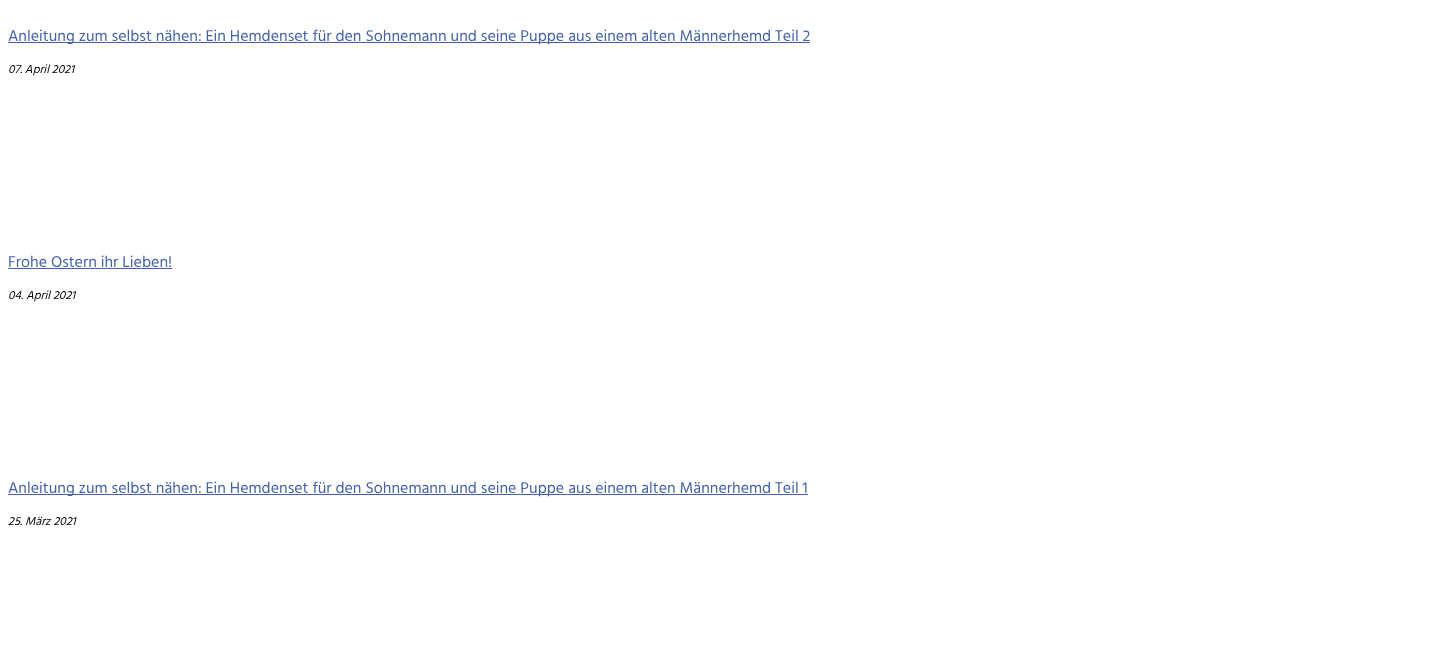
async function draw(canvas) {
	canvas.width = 1440;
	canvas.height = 671;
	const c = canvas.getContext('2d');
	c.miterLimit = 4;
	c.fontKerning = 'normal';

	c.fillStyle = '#fff';
	c.fillRect(0, 0, 1440, 671);
	c.fillStyle = '#4462a6';
	c.fillRect(8, 42, 802, 1);
	c.font = '16px Hind';
	c.fillText('Anleitung zum selbst nähen: Ein Hemdenset für den Sohnemann und seine Puppe aus einem alten Männerhemd Teil 2', 8, 41);
	c.font = 'italic 12px Hind';
	c.fillStyle = '#000';
	c.fillText('07. April 2021', 8, 73);
	c.font = '16px Hind';
	c.fillStyle = '#4462a6';
	c.fillText('Frohe Ostern ihr Lieben!', 8, 267);
	c.fillRect(8, 268, 164, 1);
	c.font = 'italic 12px Hind';
	c.fillStyle = '#000';
	c.fillText('04. April 2021', 8, 299);
	c.fillStyle = '#4462a6';
	c.fillRect(8, 494, 800, 1);
	c.font = '16px Hind';
	c.fillText('Anleitung zum selbst nähen: Ein Hemdenset für den Sohnemann und seine Puppe aus einem alten Männerhemd Teil 1', 8, 493);
	c.font = 'italic 12px Hind';
	c.fillStyle = '#000';
	c.fillText('25. März 2021', 8, 525);
}

draw(document.querySelector('canvas'));
